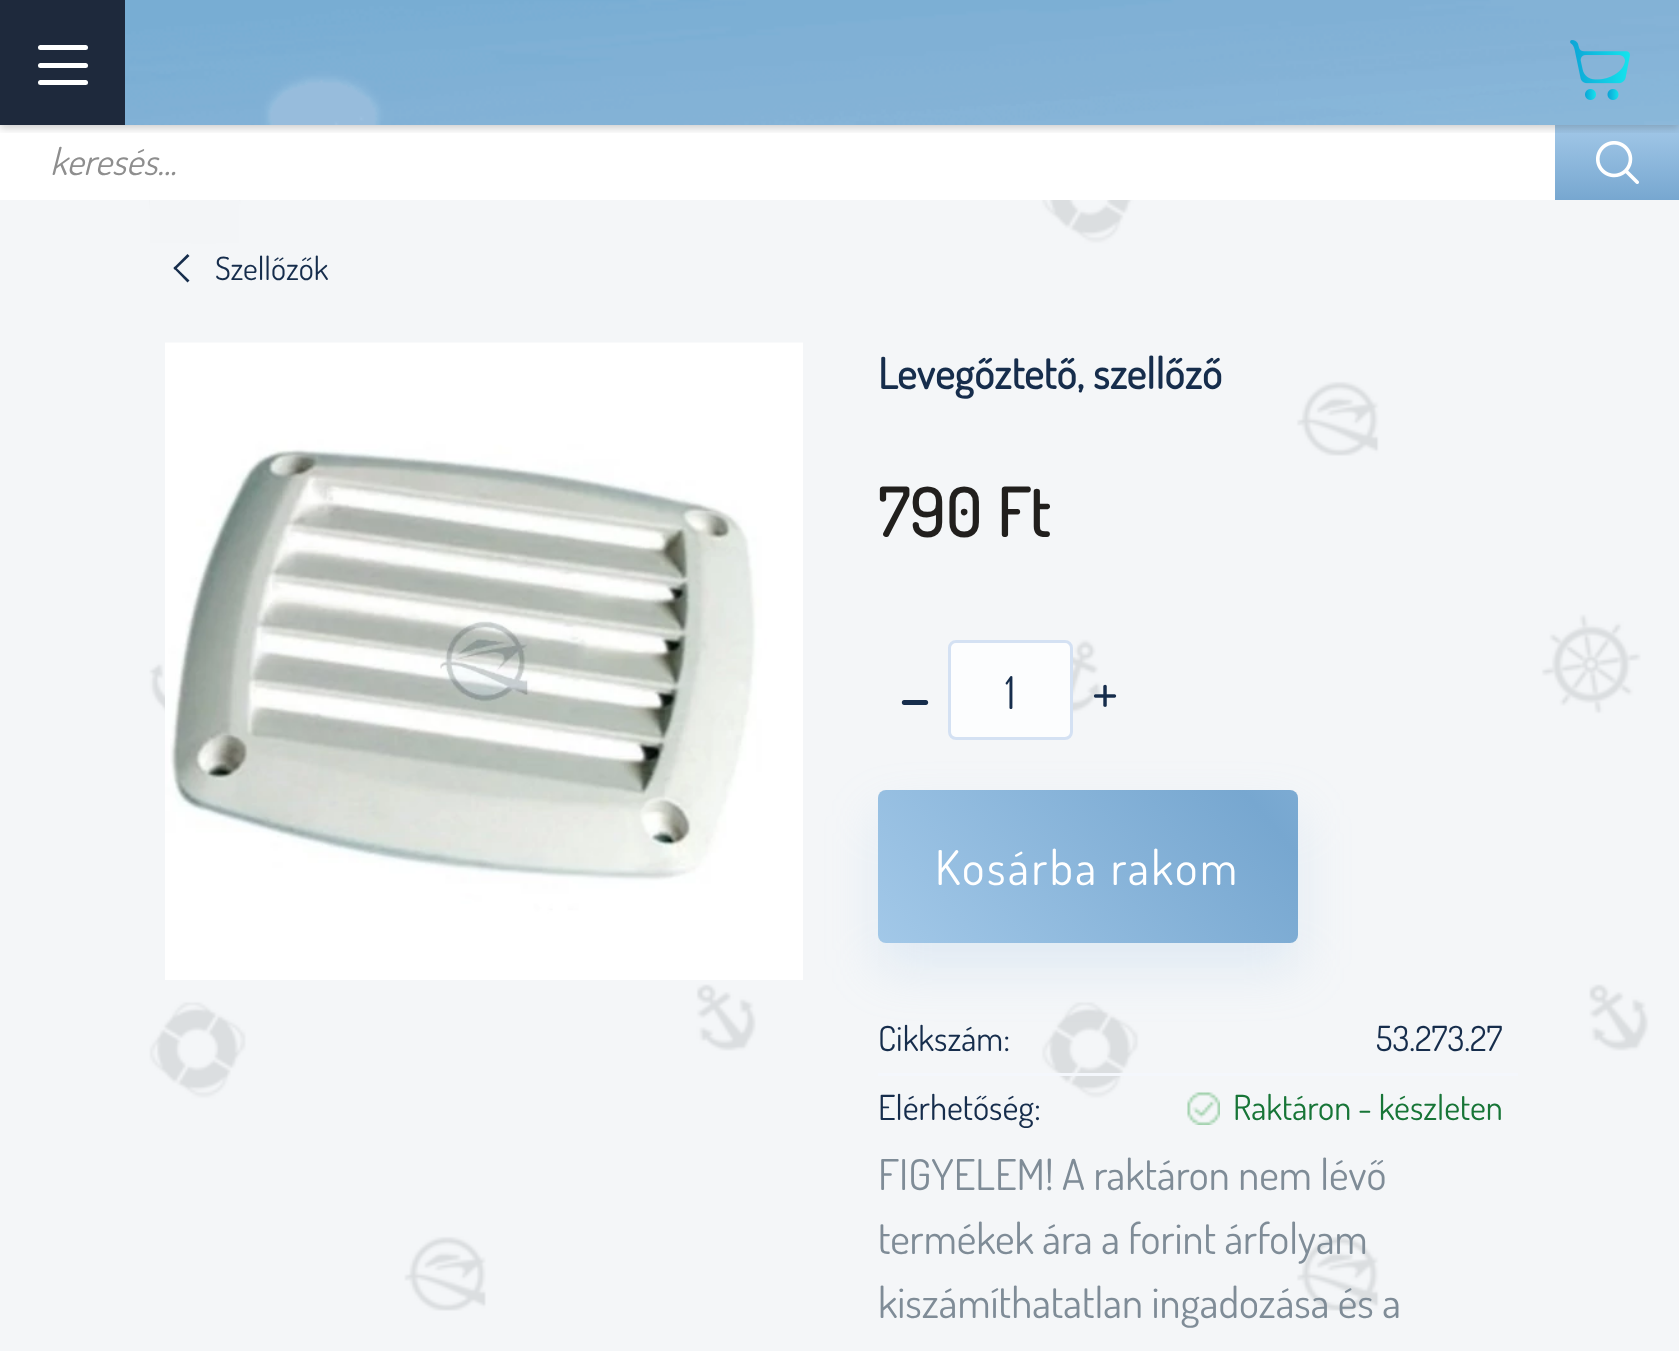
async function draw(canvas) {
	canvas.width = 1679;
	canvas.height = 1351;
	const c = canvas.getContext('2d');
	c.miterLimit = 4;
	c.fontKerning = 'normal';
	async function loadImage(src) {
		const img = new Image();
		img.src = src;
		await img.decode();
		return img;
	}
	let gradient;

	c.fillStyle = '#f2f3f3';
	c.fillRect(0, 0, 1679, 1351);
	c.drawImage(await loadImage('img1.png'), 0, 0, 1679, 1351);
	c.fillStyle = '#fff';
	c.fillRect(0, 125, 1555, 75);
	gradient = c.createLinearGradient(1618, 125, 1618, 200);
	gradient.addColorStop(0, '#a2c8e8');
	gradient.addColorStop(1, '#77a7d0');
	c.fillStyle = gradient;
	c.fillRect(1555, 125, 124, 75);
	c.save();
	c.beginPath();
	c.rect(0, 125, 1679, 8);
	c.clip();
	c.fillStyle = '#00000033';
	c.filter = 'blur(4px)';
	c.beginPath();
	c.rect(0, 3, 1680, 125);
	c.fill();
	c.filter = 'none';
	c.restore();
	c.drawImage(await loadImage('img2.png'), 125, 0, 1554, 125);
	c.fillStyle = '#1e293c';
	c.fillRect(0, 0, 125, 125);
	c.fillStyle = '#fff';
	c.beginPath();
	c.roundRect(38, 45, 50, 5, 2.5);
	c.fill();
	c.beginPath();
	c.roundRect(38, 63, 50, 5, 2.5);
	c.fill();
	c.beginPath();
	c.roundRect(38, 80, 50, 5, 2.5);
	c.fill();
	c.drawImage(await loadImage('img3.png'), 1570, 40, 60, 60);
	c.font = 'italic 37px Dosis';
	c.fillStyle = '#8e8e8e';
	c.fillText('keresés...', 50, 175);
	c.drawImage(await loadImage('img4.png'), 1596, 141, 43, 43);
	c.fillStyle = '#f3f5f7';
	c.fillRect(150, 200, 89, 43);
	c.fillStyle = '#162d4c';
	c.beginPath();
	c.moveTo(189.5, 280.5);
	c.lineTo(187.5, 282.5);
	c.lineTo(173.5, 268);
	c.lineTo(175, 266.5);
	c.closePath();
	c.fill();
	c.beginPath();
	c.moveTo(189.5, 256);
	c.lineTo(175, 270);
	c.lineTo(173.5, 268);
	c.lineTo(187.5, 254);
	c.closePath();
	c.fill();
	c.font = '32px Dosis';
	c.fillText('Szellőzők', 215, 280);
	c.drawImage(await loadImage('img5.png'), 165, 342, 638, 638);
	c.letterSpacing = '0.25px';
	c.font = 'bold 42.5px Dosis';
	c.fillText('Levegőztető, szellőző', 878, 389);
	c.letterSpacing = '1.25px';
	c.font = 'bold 66.5px Dosis';
	c.fillStyle = '#211f1d';
	c.fillText('790 Ft', 878, 537);
	c.letterSpacing = '0px';
	c.font = '85px Dosis';
	c.fillStyle = '#162d4c';
	c.fillText('-', 898, 723);
	c.fillStyle = '#fcfdfe';
	c.beginPath();
	c.roundRect(949.5, 641.5, 122, 97, 6.5);
	c.fill();
	c.strokeStyle = '#d4e1f3';
	c.lineWidth = 3;
	c.stroke();
	c.font = '45px Dosis';
	c.fillStyle = '#162d4c';
	c.fillText('1', 1005, 709);
	c.font = '60px Dosis';
	c.fillText('+', 1092, 713);
	c.fillStyle = '#a2c8e840';
	c.filter = 'blur(25px)';
	c.beginPath();
	c.roundRect(878, 815, 420, 153, 8);
	c.fill();
	c.filter = 'none';
	gradient = c.createLinearGradient(1013, 1105, 1582, 628);
	gradient.addColorStop(0, '#a2c8e8');
	gradient.addColorStop(0.51, '#77a7d0');
	gradient.addColorStop(1, '#a2c8e8');
	c.fillStyle = gradient;
	c.beginPath();
	c.roundRect(878, 790, 420, 153, 8);
	c.fill();
	c.letterSpacing = '2.5px';
	c.font = '47.75px Dosis';
	c.fillStyle = '#fff';
	c.fillText('Kosárba rakom', 935, 885);
	c.fillStyle = '#f4f7fc';
	c.fillRect(878, 1073, 640, 3);
	c.letterSpacing = '0px';
	c.font = '34.5px Dosis';
	c.fillStyle = '#162d4c';
	for (const [text, x, y] of [
		['Cikkszám:', 878, 1051],
		['53.273.27', 1376, 1051],
		['Elérhetőség:', 878, 1120],
	]) {
		c.fillText(text, x, y);
	}
	c.drawImage(await loadImage('img6.png'), 1187, 1092, 33, 33);
	c.fillStyle = '#177537';
	c.fillText('Raktáron - készleten', 1233, 1120);
	c.font = '42.5px Dosis';
	c.fillStyle = '#7f8c97';
	for (const [text, x, y] of [
		['FIGYELEM! A raktáron nem lévő', 878, 1190],
		['termékek ára a forint árfolyam', 878, 1254],
		['kiszámíthatatlan ingadozása és a', 878, 1318],
	]) {
		c.fillText(text, x, y);
	}
}

draw(document.querySelector('canvas'));
